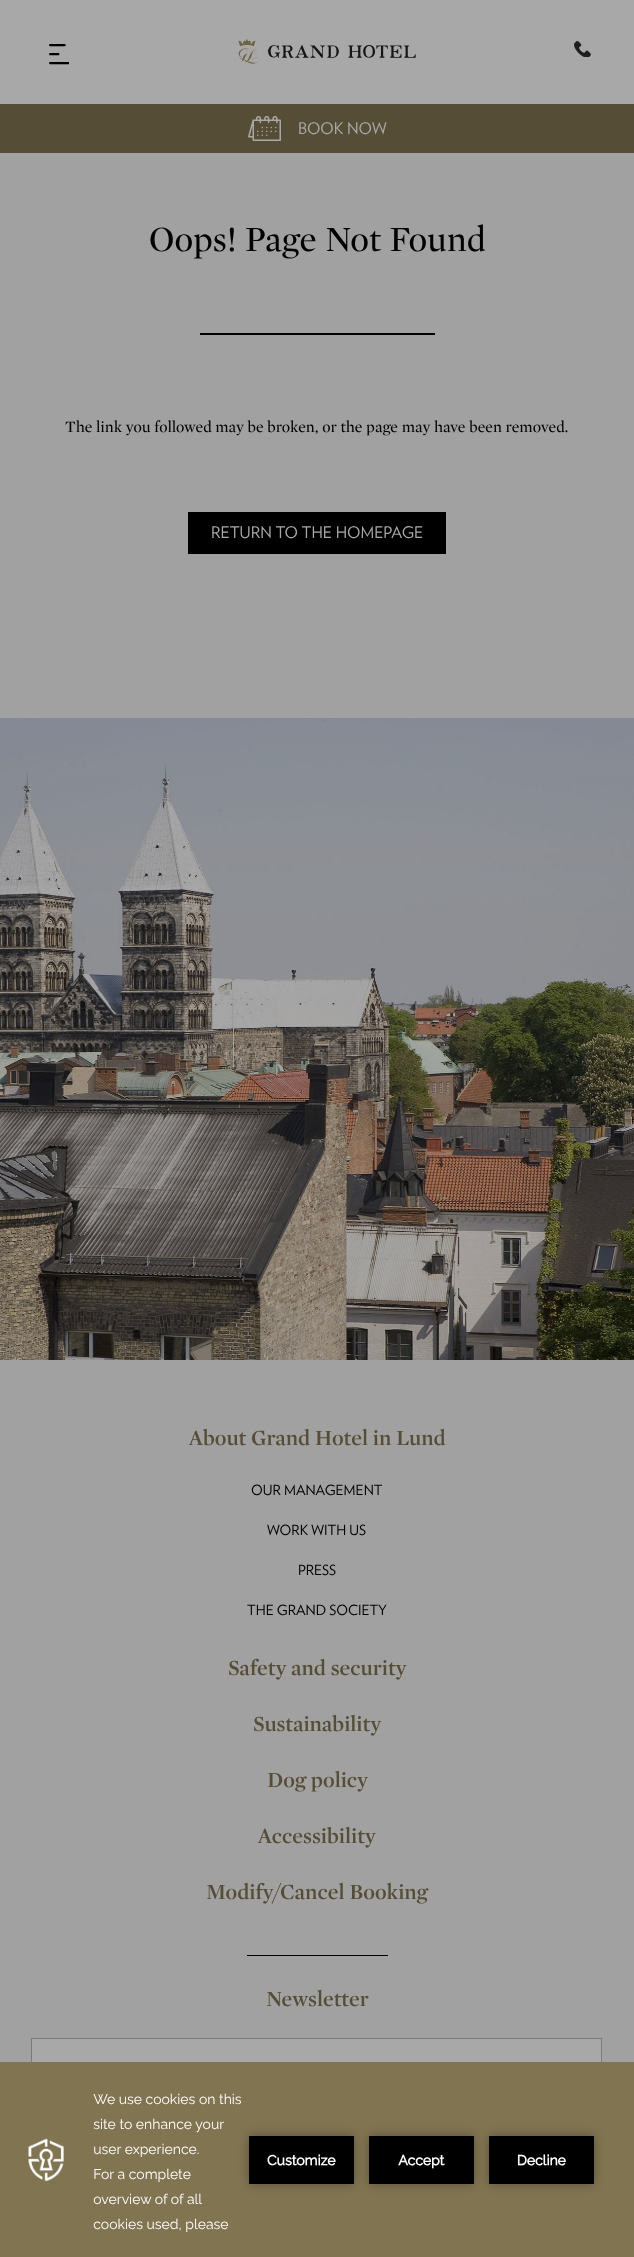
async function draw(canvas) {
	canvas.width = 634;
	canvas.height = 2257;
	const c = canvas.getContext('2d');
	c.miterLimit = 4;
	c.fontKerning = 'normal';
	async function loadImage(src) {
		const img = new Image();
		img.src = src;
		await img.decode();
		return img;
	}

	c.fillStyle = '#a1a1a1';
	c.fillRect(0, 0, 634, 2257);
	c.fillStyle = '#a8a8a8';
	c.fillRect(0, 0, 634, 104);
	c.drawImage(await loadImage('img1.png'), 49, 44, 20, 21);
	c.drawImage(await loadImage('img2.png'), 234, 39, 182, 26);
	c.drawImage(await loadImage('img3.png'), 574, 41, 17, 16);
	c.fillStyle = '#554d35';
	c.fillRect(0, 104, 634, 49);
	c.drawImage(await loadImage('img4.png'), 248, 116, 33, 25);
	c.font = '16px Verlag';
	c.fillStyle = '#a8a8a8';
	c.fillText('BOOK NOW', 298, 134);
	c.font = '36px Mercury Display';
	c.fillStyle = '#000';
	c.fillText('Oops! Page Not Found', 149, 251);
	c.fillRect(200, 333, 235, 2);
	c.font = '16px Mercury Display';
	c.fillText('The link you followed may be broken, or the page may have been removed.', 65, 432);
	c.fillRect(188, 512, 258, 42);
	c.font = '16px Verlag';
	c.fillStyle = '#a8a8a8';
	c.fillText('RETURN TO THE HOMEPAGE', 211, 538);
	c.drawImage(await loadImage('img5.png'), 0, 718, 634, 642);
	c.font = '600 22px Mercury Display';
	c.fillStyle = '#554d35';
	c.fillText('About Grand Hotel in Lund', 189, 1445);
	c.font = '14px Verlag';
	c.fillStyle = '#000';
	for (const [text, x, y] of [
		['OUR MANAGEMENT', 251, 1495],
		['WORK WITH US', 267, 1535],
		['PRESS', 298, 1575],
		['THE GRAND SOCIETY', 247, 1615],
	]) {
		c.fillText(text, x, y);
	}
	c.font = '600 22px Mercury Display';
	c.fillStyle = '#554d35';
	for (const [text, x, y] of [
		['Safety and security', 228, 1675],
		['Sustainability', 253, 1731],
		['Dog policy', 267, 1787],
		['Accessibility', 258, 1843],
		['Modify/Cancel Booking', 206, 1899],
	]) {
		c.fillText(text, x, y);
	}
	c.fillStyle = '#000';
	c.fillRect(247, 1955, 141, 1);
	c.fillStyle = '#554d35';
	c.fillText('Newsletter', 266, 2006);
	c.fillStyle = '#a8a8a8';
	c.fillRect(32, 2039, 569, 23);
	c.strokeStyle = '#7a7a7a';
	c.strokeRect(31.5, 2038.5, 570, 48);
	c.drawImage(await loadImage('img6.png'), 0, 2062, 634, 195);
}

draw(document.querySelector('canvas'));
